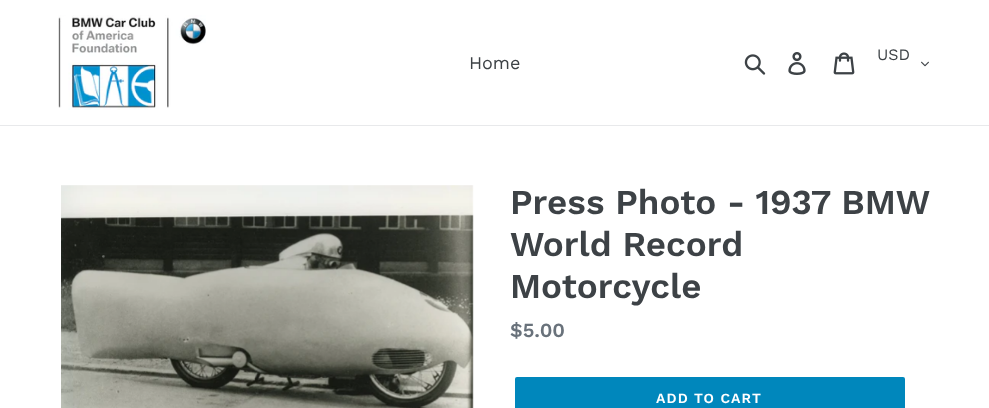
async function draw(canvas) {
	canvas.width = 989;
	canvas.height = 408;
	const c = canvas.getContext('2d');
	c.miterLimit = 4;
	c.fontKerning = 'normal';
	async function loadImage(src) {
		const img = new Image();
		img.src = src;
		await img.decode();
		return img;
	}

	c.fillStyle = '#fff';
	c.fillRect(0, 0, 989, 408);
	c.fillStyle = '#e8e9eb';
	c.fillRect(0, 125, 989, 1);
	c.drawImage(await loadImage('img1.png'), 58, 15, 148, 95);
	c.drawImage(await loadImage('img2.png'), 744, 54, 22, 21);
	c.drawImage(await loadImage('img3.png'), 788, 52, 18, 23);
	c.drawImage(await loadImage('img4.png'), 833, 52, 22, 23);
	c.font = '16px Work Sans';
	c.fillStyle = '#3d4246';
	c.fillText('USD', 877, 60);
	c.drawImage(await loadImage('img5.png'), 921, 61, 8, 6);
	c.font = '18px Work Sans';
	c.fillText('Home', 469, 69);
	c.drawImage(await loadImage('img6.png'), 61, 185, 413, 223);
	c.font = '600 35px Work Sans';
	for (const [text, x, y] of [
		['Press Photo - 1937 BMW', 510, 214],
		['World Record', 510, 256],
		['Motorcycle', 510, 298],
	]) {
		c.fillText(text, x, y);
	}
	c.font = '600 20px Work Sans';
	c.fillStyle = '#69727b';
	c.fillText('$5.00', 510, 337);
	c.fillStyle = '#0087bc';
	c.beginPath();
	c.roundRect(515, 377, 390, 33, 2);
	c.fill();
	c.letterSpacing = '1.1px';
	c.font = '600 14px Work Sans';
	c.fillStyle = '#fff';
	c.fillText('ADD TO CART', 656, 403);
}

draw(document.querySelector('canvas'));
